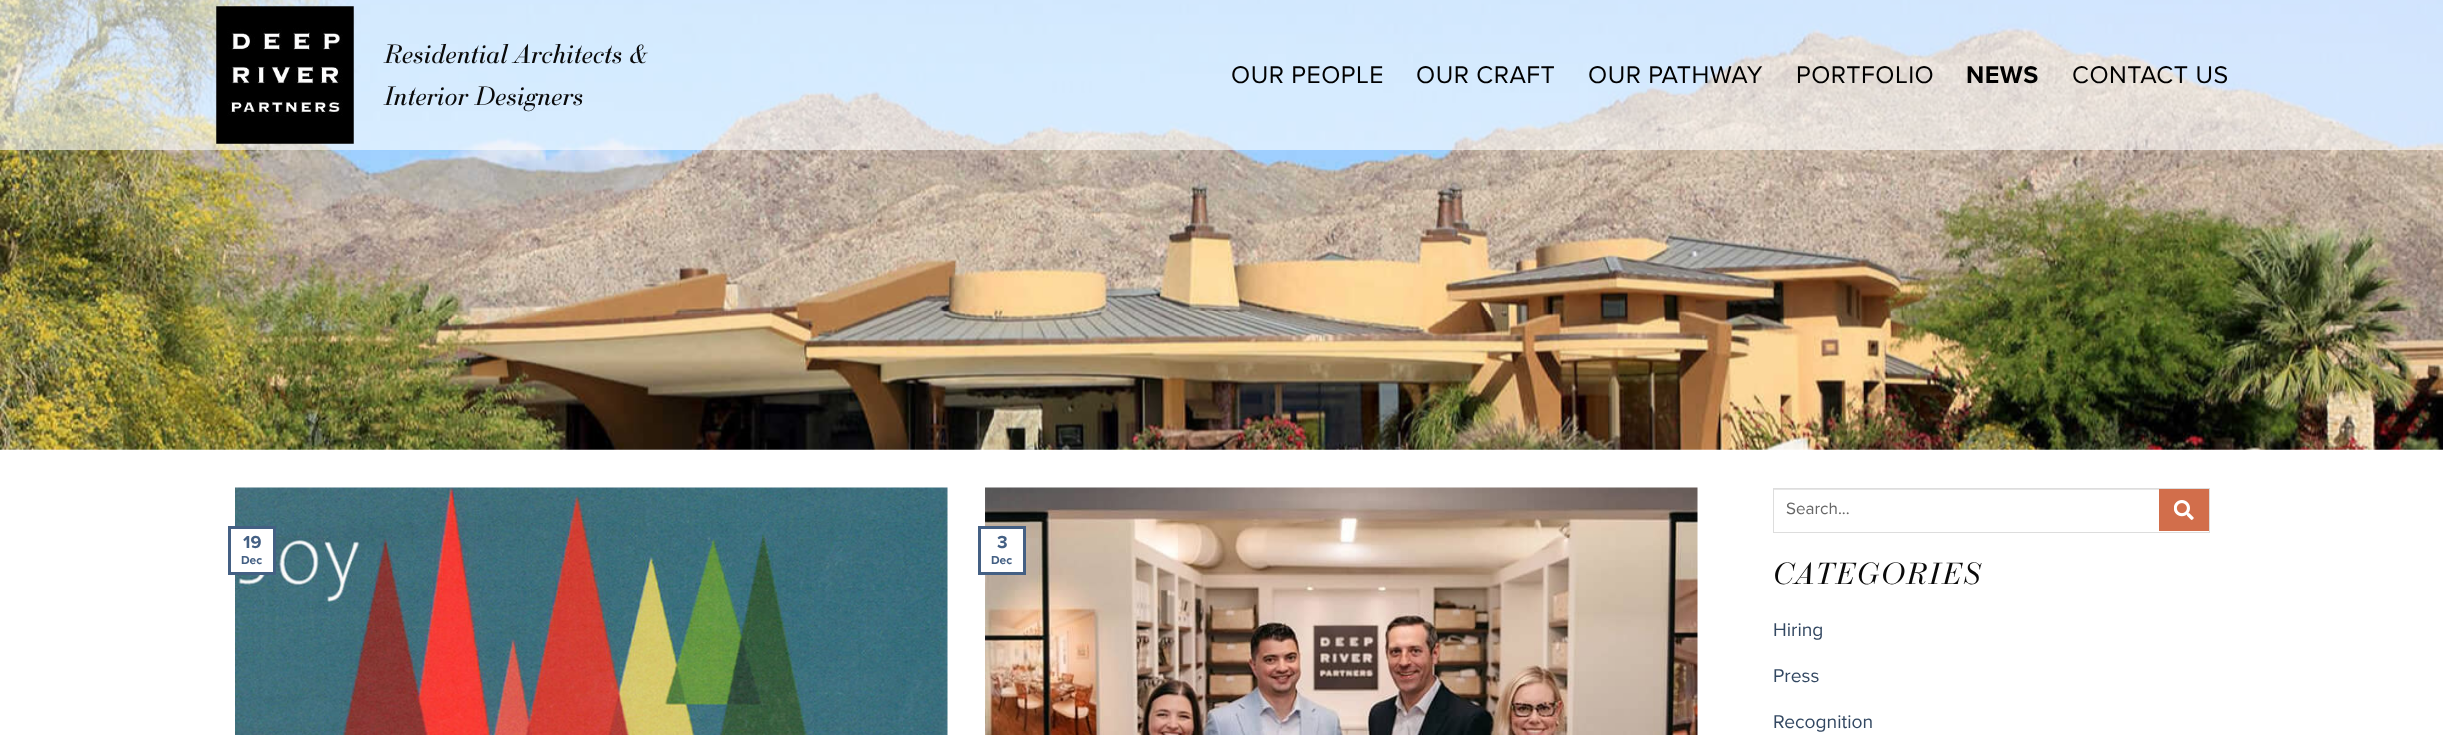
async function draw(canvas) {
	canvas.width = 2443;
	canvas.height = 735;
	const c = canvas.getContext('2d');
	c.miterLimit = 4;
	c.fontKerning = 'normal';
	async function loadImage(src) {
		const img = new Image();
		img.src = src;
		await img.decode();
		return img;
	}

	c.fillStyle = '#fff';
	c.fillRect(0, 0, 2443, 735);
	c.drawImage(await loadImage('img2.png'), 0, 0, 2443, 450);
	c.fillStyle = '#ffffff99';
	c.fillRect(0, 0, 2443, 150);
	c.drawImage(await loadImage('img1.png'), 216, 6, 138, 138);
	c.font = 'italic 26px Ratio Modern';
	c.fillStyle = '#0a0a0a';
	c.fillText('Residential Architects &', 384, 63);
	c.fillText('Interior Designers', 384, 105);
	c.letterSpacing = '0.5px';
	c.font = '25px Proxima Nova';
	c.fillStyle = '#000';
	for (const [text, x, y] of [
		['OUR PEOPLE', 1231, 83],
		['OUR CRAFT', 1416, 83],
		['OUR PATHWAY', 1588, 83],
		['PORTFOLIO', 1796, 83],
	]) {
		c.fillText(text, x, y);
	}
	c.font = 'bold 25px Proxima Nova';
	c.fillText('NEWS', 1966, 83);
	c.font = '25px Proxima Nova';
	c.fillText('CONTACT US', 2072, 83);
	c.drawImage(await loadImage('img3.png'), 235, 487, 713, 248);
	c.fillStyle = '#fff';
	c.fillRect(235, 529, 38, 43);
	c.strokeStyle = '#446084';
	c.lineWidth = 3;
	c.strokeRect(229.5, 527.5, 45, 46);
	c.letterSpacing = '0px';
	c.font = 'bold 18px Proxima Nova';
	c.fillStyle = '#446084';
	c.fillText('19', 243, 548);
	c.font = 'bold 12px Proxima Nova';
	c.fillText('Dec', 241, 564);
	c.drawImage(await loadImage('img4.png'), 985, 487, 713, 248);
	c.fillStyle = '#fff';
	c.fillRect(985, 529, 38, 43);
	c.strokeRect(979.5, 527.5, 45, 46);
	c.font = 'bold 18px Proxima Nova';
	c.fillStyle = '#446084';
	c.fillText('3', 997, 548);
	c.font = 'bold 12px Proxima Nova';
	c.fillText('Dec', 991, 564);
	c.fillStyle = '#e6e6e6';
	c.fillRect(1774, 489, 385, 1);
	c.strokeStyle = '#ddd';
	c.lineWidth = 1;
	c.strokeRect(1773.5, 488.5, 436, 44);
	c.font = '17px Proxima Nova';
	c.fillStyle = '#666';
	c.fillText('Search...', 1786, 514);
	c.fillStyle = '#d26e4b';
	c.fillRect(2159, 489, 50, 42);
	c.drawImage(await loadImage('img5.png'), 2174, 500, 20, 20);
	c.letterSpacing = '1.5px';
	c.font = 'italic 29.75px Ratio Modern';
	c.fillStyle = '#0a0a0a';
	c.fillText('CATEGORIES', 1773, 584);
	c.letterSpacing = '0px';
	c.font = '19.25px Proxima Nova';
	c.fillStyle = '#334862';
	for (const [text, x, y] of [
		['Hiring', 1773, 636],
		['Press', 1773, 682],
		['Recognition', 1773, 728],
	]) {
		c.fillText(text, x, y);
	}
}

draw(document.querySelector('canvas'));
